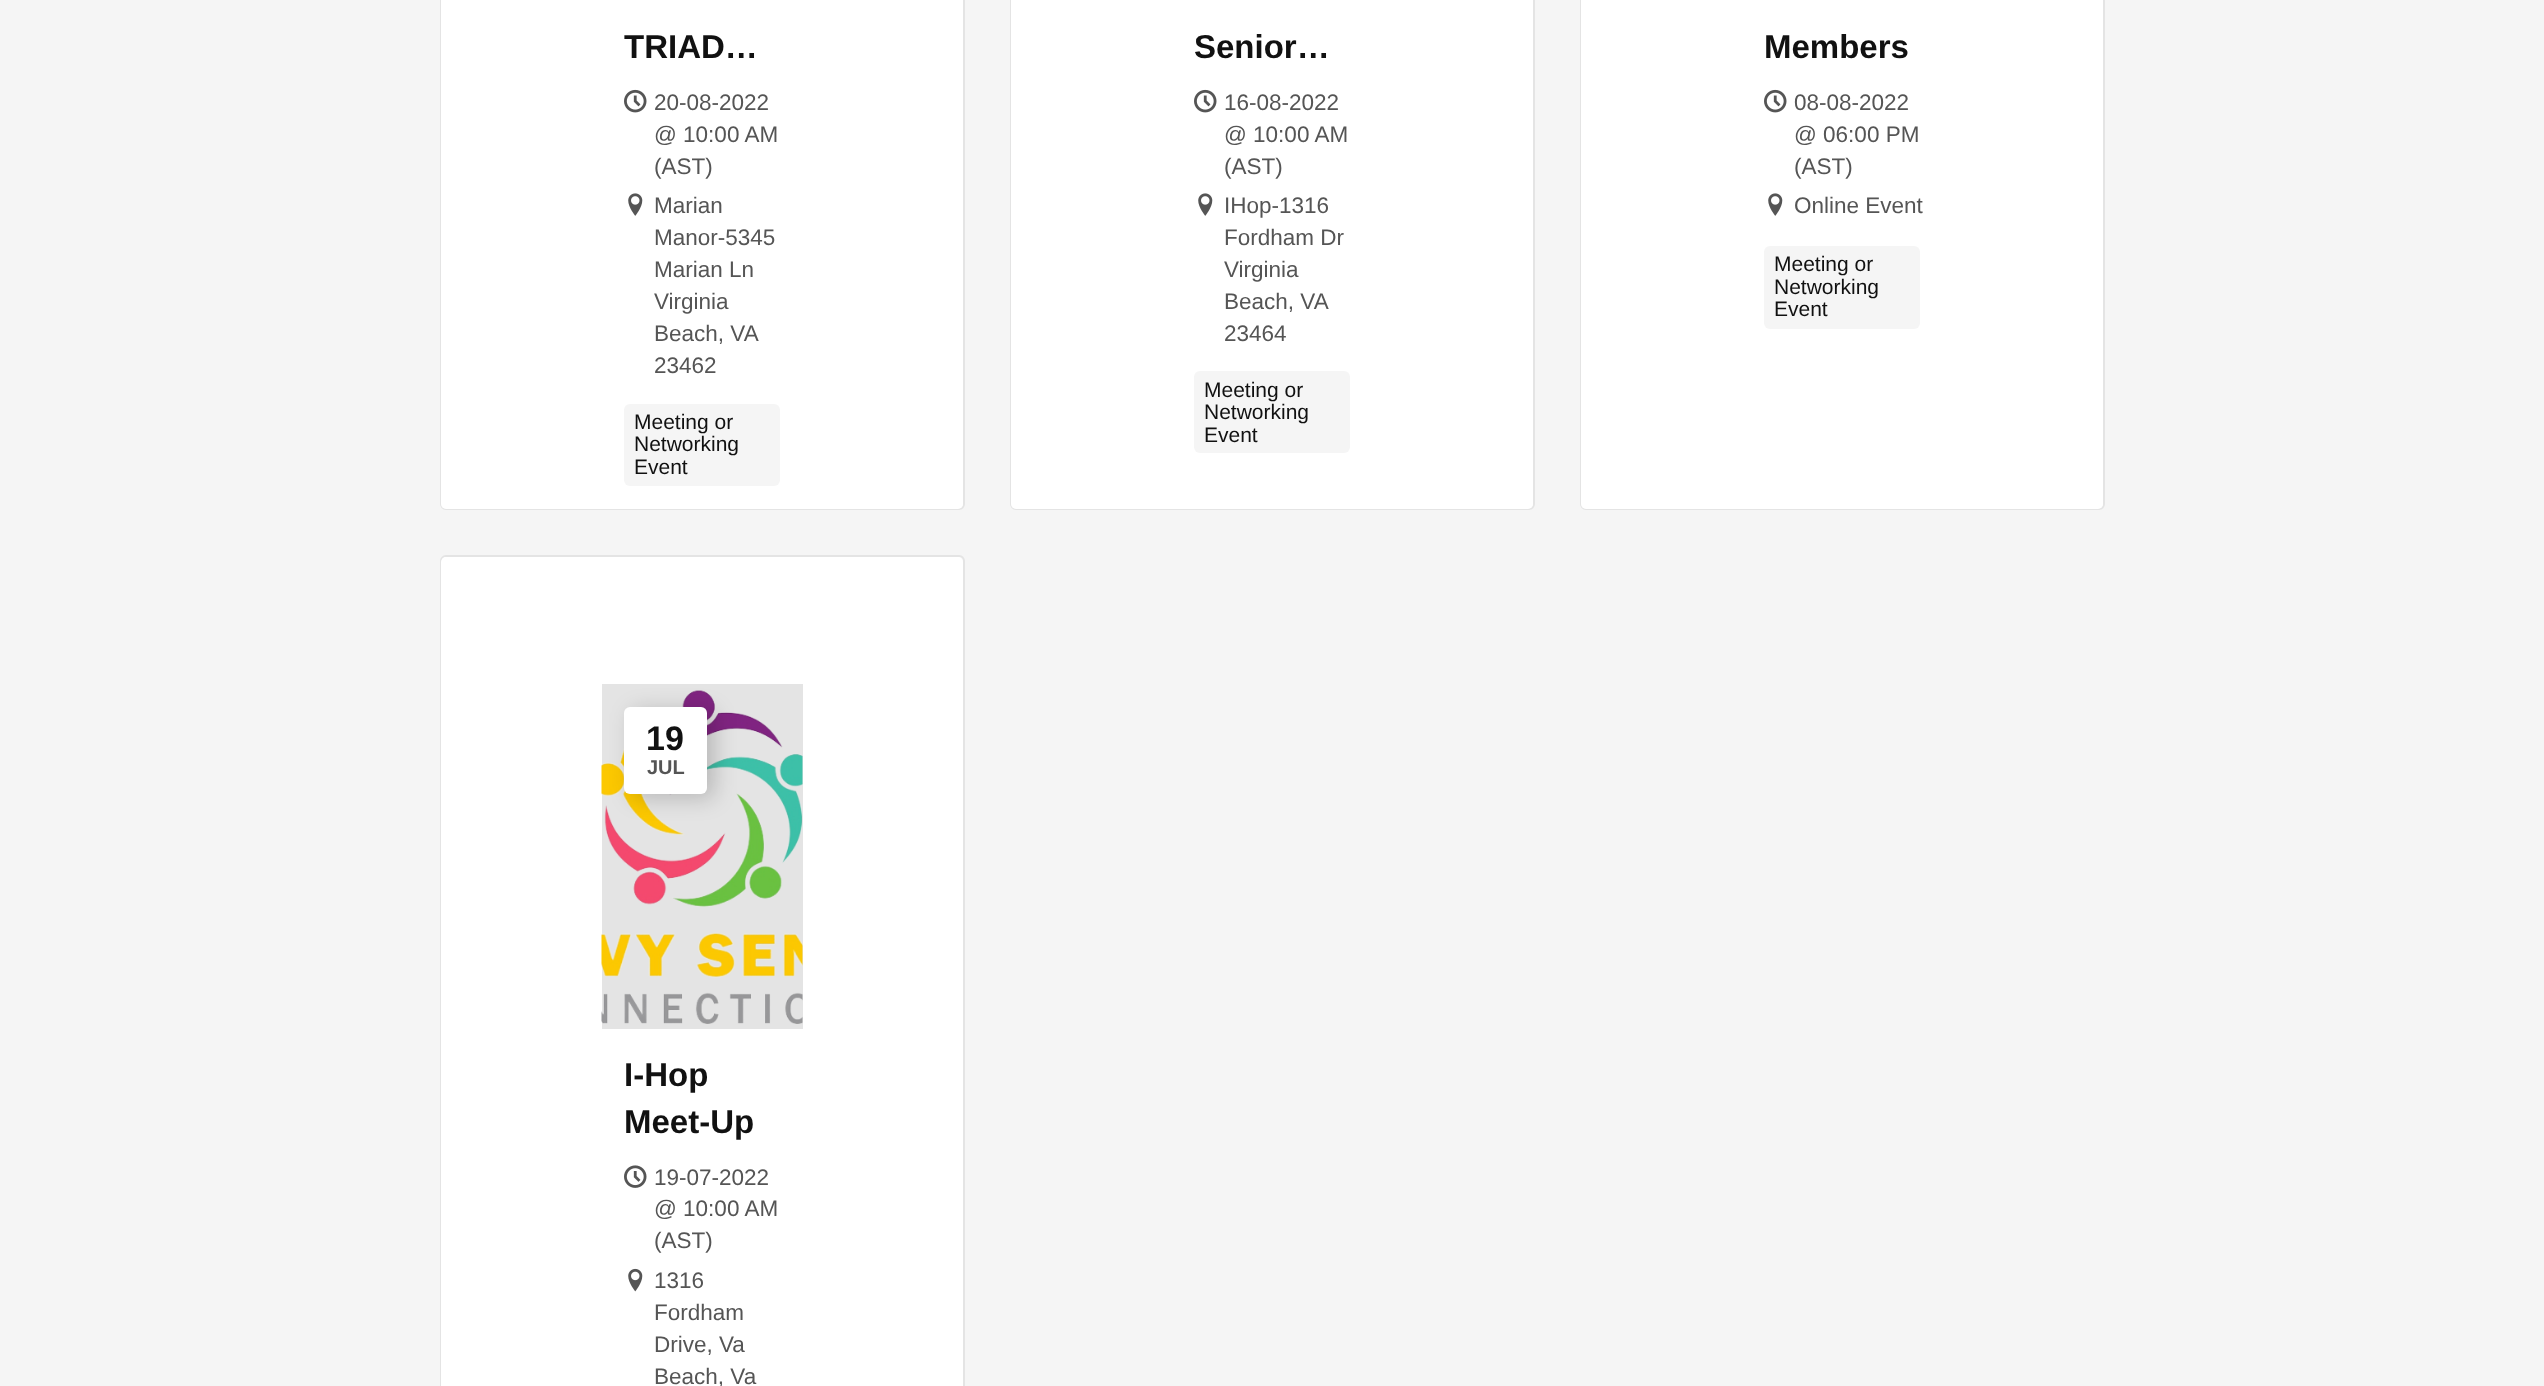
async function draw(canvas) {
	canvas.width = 2544;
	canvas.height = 1386;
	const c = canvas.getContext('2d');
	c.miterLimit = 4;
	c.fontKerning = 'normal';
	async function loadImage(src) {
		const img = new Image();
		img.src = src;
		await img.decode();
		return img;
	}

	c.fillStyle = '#f5f5f5';
	c.fillRect(0, 0, 2544, 1386);
	c.beginPath();
	c.roundRect(441, -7, 523, 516, 5);
	c.strokeStyle = '#e4e4e4';
	c.lineWidth = 2;
	c.stroke();
	c.fillStyle = '#fff';
	c.beginPath();
	c.roundRect(441, -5, 522, 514, 5);
	c.fill();
	c.font = 'bold 33px Liberation Sans';
	c.fillStyle = '#111';
	c.fillText('TRIAD…', 624, 58);
	c.drawImage(await loadImage('img1.png'), 624, 89, 23, 24);
	c.font = '22.5px Liberation Sans';
	c.fillStyle = '#555';
	for (const [text, x, y] of [
		['20-08-2022', 654, 110],
		['@ 10:00 AM', 654, 142],
		['(AST)', 654, 174],
	]) {
		c.fillText(text, x, y);
	}
	c.drawImage(await loadImage('img2.png'), 628, 193, 15, 23);
	for (const [text, x, y] of [
		['Marian', 654, 213],
		['Manor-5345', 654, 245],
		['Marian Ln', 654, 277],
		['Virginia', 654, 309],
		['Beach, VA', 654, 341],
		['23462', 654, 373],
	]) {
		c.fillText(text, x, y);
	}
	c.fillStyle = '#f5f5f5';
	c.beginPath();
	c.roundRect(624, 404, 156, 82, 6);
	c.fill();
	c.font = '21px Liberation Sans';
	c.fillStyle = '#111';
	for (const [text, x, y] of [
		['Meeting or', 634, 429],
		['Networking', 634, 451],
		['Event', 634, 474],
	]) {
		c.fillText(text, x, y);
	}
	c.beginPath();
	c.roundRect(1011, -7, 523, 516, 5);
	c.stroke();
	c.fillStyle = '#fff';
	c.beginPath();
	c.roundRect(1011, -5, 522, 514, 5);
	c.fill();
	c.font = 'bold 33px Liberation Sans';
	c.fillStyle = '#111';
	c.fillText('Senior…', 1194, 58);
	c.drawImage(await loadImage('img1.png'), 1194, 89, 23, 24);
	c.font = '22.5px Liberation Sans';
	c.fillStyle = '#555';
	for (const [text, x, y] of [
		['16-08-2022', 1224, 110],
		['@ 10:00 AM', 1224, 142],
		['(AST)', 1224, 174],
	]) {
		c.fillText(text, x, y);
	}
	c.drawImage(await loadImage('img2.png'), 1198, 193, 15, 23);
	for (const [text, x, y] of [
		['IHop-1316', 1224, 213],
		['Fordham Dr', 1224, 245],
		['Virginia', 1224, 277],
		['Beach, VA', 1224, 309],
		['23464', 1224, 341],
	]) {
		c.fillText(text, x, y);
	}
	c.fillStyle = '#f5f5f5';
	c.beginPath();
	c.roundRect(1194, 371, 156, 82, 6);
	c.fill();
	c.font = '21px Liberation Sans';
	c.fillStyle = '#111';
	for (const [text, x, y] of [
		['Meeting or', 1204, 397],
		['Networking', 1204, 419],
		['Event', 1204, 442],
	]) {
		c.fillText(text, x, y);
	}
	c.beginPath();
	c.roundRect(1581, -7, 523, 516, 5);
	c.stroke();
	c.fillStyle = '#fff';
	c.beginPath();
	c.roundRect(1581, -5, 522, 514, 5);
	c.fill();
	c.font = 'bold 33px Liberation Sans';
	c.fillStyle = '#111';
	c.fillText('Members', 1764, 58);
	c.drawImage(await loadImage('img1.png'), 1764, 89, 23, 24);
	c.font = '22.5px Liberation Sans';
	c.fillStyle = '#555';
	for (const [text, x, y] of [
		['08-08-2022', 1794, 110],
		['@ 06:00 PM', 1794, 142],
		['(AST)', 1794, 174],
	]) {
		c.fillText(text, x, y);
	}
	c.drawImage(await loadImage('img2.png'), 1768, 193, 15, 23);
	c.fillText('Online Event', 1794, 213);
	c.fillStyle = '#f5f5f5';
	c.beginPath();
	c.roundRect(1764, 246, 156, 83, 6);
	c.fill();
	c.font = '21px Liberation Sans';
	c.fillStyle = '#111';
	for (const [text, x, y] of [
		['Meeting or', 1774, 271],
		['Networking', 1774, 294],
		['Event', 1774, 316],
	]) {
		c.fillText(text, x, y);
	}
	c.beginPath();
	c.roundRect(441, 556, 523, 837, 5);
	c.stroke();
	c.fillStyle = '#fff';
	c.beginPath();
	c.roundRect(441, 557, 522, 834, 5);
	c.fill();
	c.fillStyle = '#e4e4e4';
	c.fillRect(602, 684, 201, 345);
	c.drawImage(await loadImage('img3.png'), 601, 690, 202, 334);
	c.fillStyle = '#00000033';
	c.filter = 'blur(11px)';
	c.beginPath();
	c.roundRect(632, 711, 82, 87, 6);
	c.fill();
	c.filter = 'none';
	c.fillStyle = '#fff';
	c.beginPath();
	c.roundRect(624, 707, 83, 87, 6);
	c.fill();
	c.font = 'bold 34px Liberation Sans';
	c.fillStyle = '#111';
	c.fillText('19', 646, 750);
	c.font = 'bold 20px Liberation Sans';
	c.fillStyle = '#555';
	c.fillText('JUL', 647, 774);
	c.font = 'bold 33px Liberation Sans';
	c.fillStyle = '#111';
	c.fillText('I-Hop', 624, 1086);
	c.fillText('Meet-Up', 624, 1133);
	c.drawImage(await loadImage('img4.png'), 624, 1165, 23, 23);
	c.font = '22.5px Liberation Sans';
	c.fillStyle = '#555';
	for (const [text, x, y] of [
		['19-07-2022', 654, 1185],
		['@ 10:00 AM', 654, 1216],
		['(AST)', 654, 1248],
	]) {
		c.fillText(text, x, y);
	}
	c.drawImage(await loadImage('img5.png'), 628, 1268, 15, 24);
	for (const [text, x, y] of [
		['1316', 654, 1288],
		['Fordham', 654, 1320],
		['Drive, Va', 654, 1352],
		['Beach, Va', 654, 1384],
	]) {
		c.fillText(text, x, y);
	}
}

draw(document.querySelector('canvas'));
